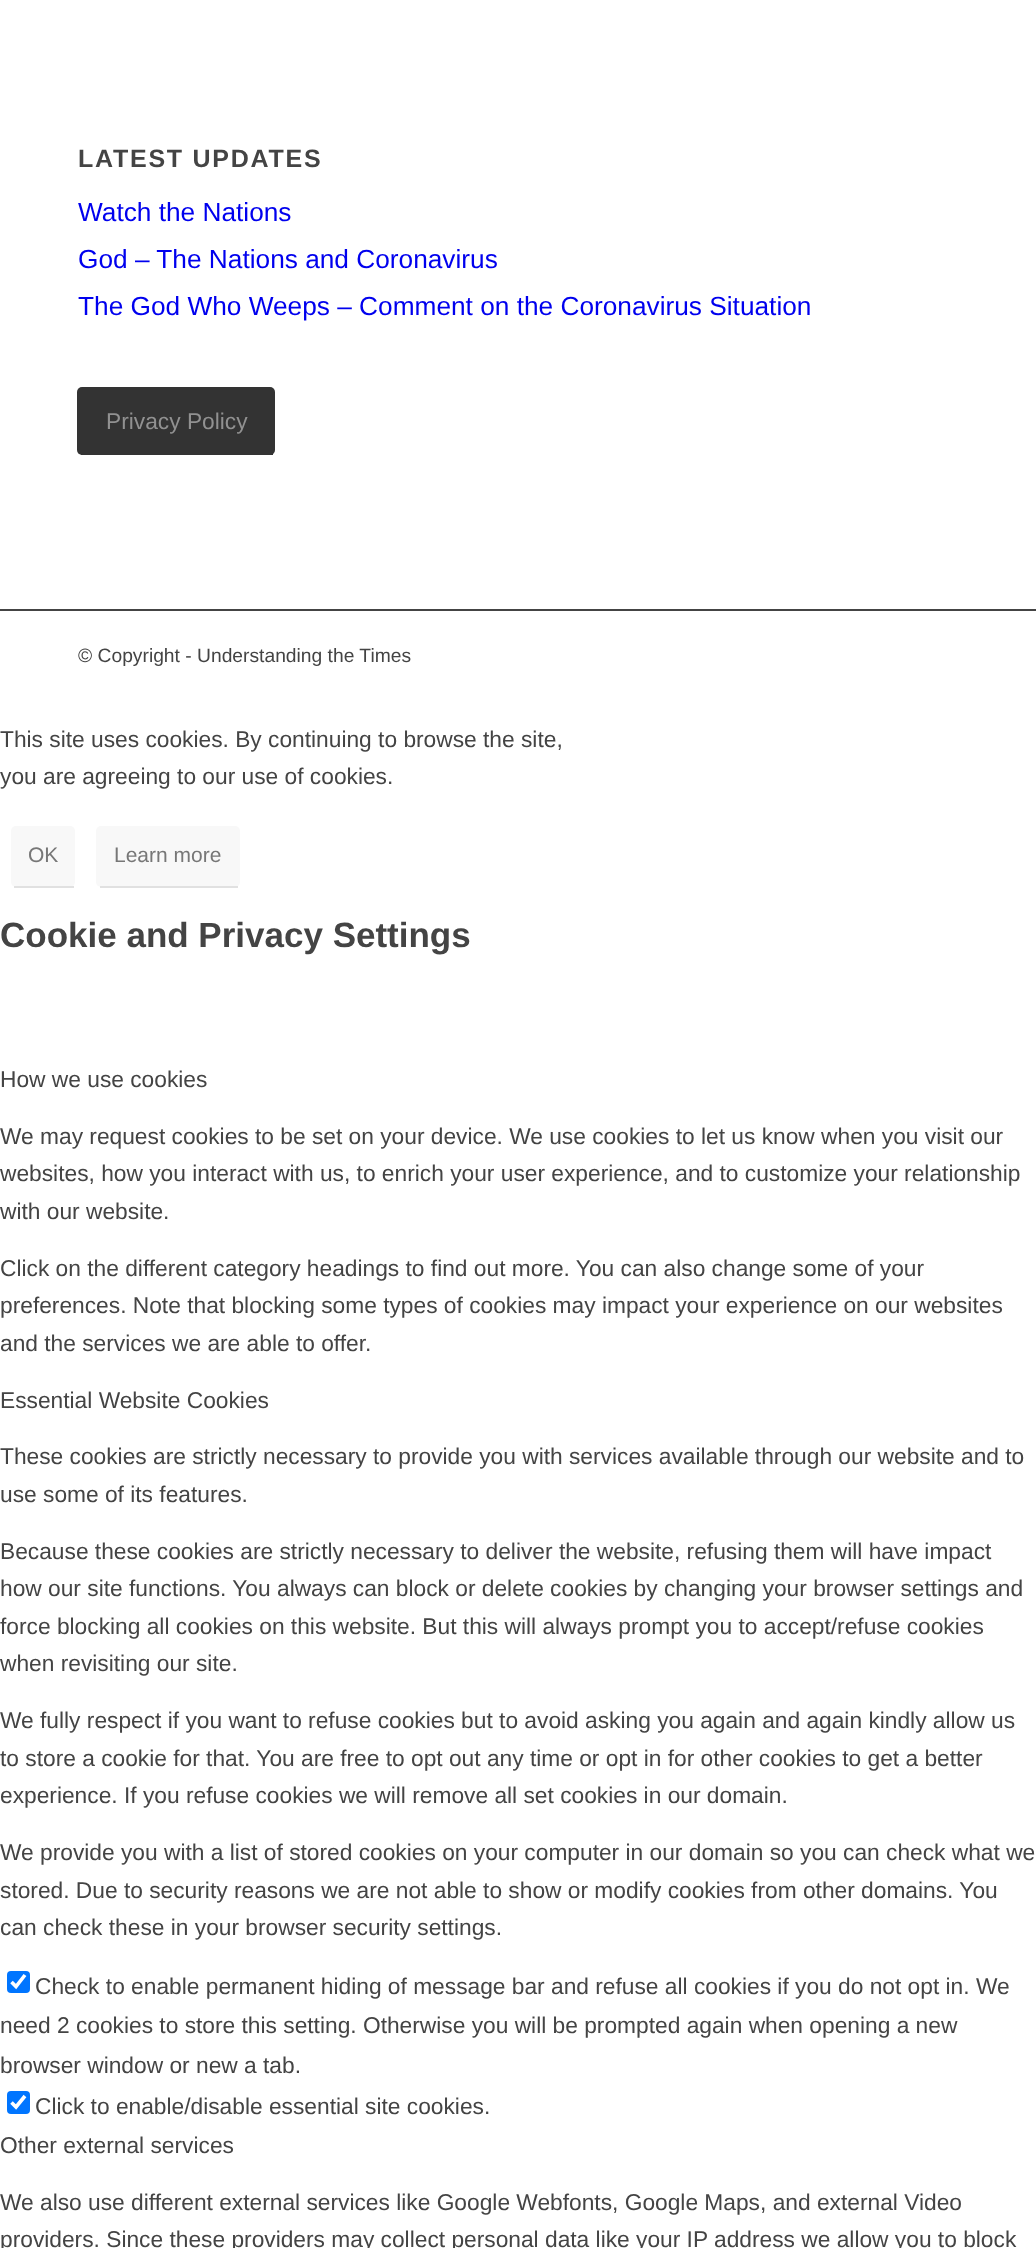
async function draw(canvas) {
	canvas.width = 1036;
	canvas.height = 2248;
	const c = canvas.getContext('2d');
	c.miterLimit = 4;
	c.fontKerning = 'normal';

	c.fillStyle = '#fff';
	c.fillRect(0, 0, 1036, 2248);
	c.letterSpacing = '1.75px';
	c.font = 'bold 25px Liberation Sans';
	c.fillStyle = '#444';
	c.fillText('LATEST UPDATES', 78, 167);
	c.letterSpacing = '0px';
	c.font = '26.25px Liberation Sans';
	c.fillStyle = '#00e';
	for (const [text, x, y] of [
		['Watch the Nations', 78, 221],
		['God – The Nations and Coronavirus', 78, 268],
		['The God Who Weeps – Comment on the Coronavirus Situation', 78, 315],
	]) {
		c.fillText(text, x, y);
	}
	c.fillStyle = '#333';
	c.beginPath();
	c.roundRect(77, 387, 198, 68, 5);
	c.fill();
	c.fillRect(81, 454, 192, 1);
	c.font = '22.75px Liberation Sans';
	c.fillStyle = '#919191';
	c.fillText('Privacy Policy', 106, 429);
	c.fillStyle = '#444';
	c.fillRect(0, 609, 1036, 2);
	c.font = '19.25px Liberation Sans';
	c.fillText('© Copyright - Understanding the Times', 78, 662);
	c.font = '22.75px Liberation Sans';
	c.fillText('This site uses cookies. By continuing to browse the site,', 0, 747);
	c.fillText('you are agreeing to our use of cookies.', 0, 784);
	c.fillStyle = '#f8f8f8';
	c.beginPath();
	c.roundRect(11, 826, 64, 61, 5);
	c.fill();
	c.fillStyle = '#e1e1e1';
	c.fillRect(14, 886, 60, 2);
	c.font = '21px Liberation Sans';
	c.fillStyle = '#777';
	c.fillText('OK', 28, 862);
	c.fillStyle = '#f8f8f8';
	c.beginPath();
	c.roundRect(96, 826, 144, 61, 5);
	c.fill();
	c.fillStyle = '#e1e1e1';
	c.fillRect(100, 886, 138, 2);
	c.fillStyle = '#777';
	c.fillText('Learn more', 114, 862);
	c.font = 'bold 35px Liberation Sans';
	c.fillStyle = '#444';
	c.fillText('Cookie and Privacy Settings', 0, 947);
	c.font = '22.75px Liberation Sans';
	for (const [text, x, y] of [
		['How we use cookies', 0, 1087],
		['We may request cookies to be set on your device. We use cookies to let us know when you visit our', 0, 1144],
		['websites, how you interact with us, to enrich your user experience, and to customize your relationship', 0, 1181],
		['with our website.', 0, 1219],
		['Click on the different category headings to find out more. You can also change some of your', 0, 1276],
		['preferences. Note that blocking some types of cookies may impact your experience on our websites', 0, 1313],
		['and the services we are able to offer.', 0, 1351],
		['Essential Website Cookies', 0, 1408],
		['These cookies are strictly necessary to provide you with services available through our website and to', 0, 1464],
		['use some of its features.', 0, 1502],
		['Because these cookies are strictly necessary to deliver the website, refusing them will have impact', 0, 1559],
		['how our site functions. You always can block or delete cookies by changing your browser settings and', 0, 1596],
		['force blocking all cookies on this website. But this will always prompt you to accept/refuse cookies', 0, 1634],
		['when revisiting our site.', 0, 1671],
		['We fully respect if you want to refuse cookies but to avoid asking you again and again kindly allow us', 0, 1728],
		['to store a cookie for that. You are free to opt out any time or opt in for other cookies to get a better', 0, 1766],
		['experience. If you refuse cookies we will remove all set cookies in our domain.', 0, 1803],
		['We provide you with a list of stored cookies on your computer in our domain so you can check what we', 0, 1860],
		['stored. Due to security reasons we are not able to show or modify cookies from other domains. You', 0, 1898],
		['can check these in your browser security settings.', 0, 1935],
	]) {
		c.fillText(text, x, y);
	}
	c.fillStyle = '#0075ff';
	c.beginPath();
	c.roundRect(7, 1971, 23, 22, 4);
	c.fill();
	c.beginPath();
	c.moveTo(11.5, 1982);
	c.lineTo(16, 1986.5);
	c.lineTo(25, 1975);
	c.strokeStyle = '#fff';
	c.lineWidth = 3.6;
	c.stroke();
	c.fillStyle = '#444';
	for (const [text, x, y] of [
		['Check to enable permanent hiding of message bar and refuse all cookies if you do not opt in. We', 35, 1994],
		['need 2 cookies to store this setting. Otherwise you will be prompted again when opening a new', 0, 2033],
		['browser window or new a tab.', 0, 2073],
	]) {
		c.fillText(text, x, y);
	}
	c.fillStyle = '#0075ff';
	c.beginPath();
	c.roundRect(7, 2091, 23, 23, 4);
	c.fill();
	c.beginPath();
	c.moveTo(11.5, 2102.5);
	c.lineTo(16, 2107);
	c.lineTo(25, 2096);
	c.stroke();
	c.fillStyle = '#444';
	for (const [text, x, y] of [
		['Click to enable/disable essential site cookies.', 35, 2114],
		['Other external services', 0, 2153],
		['We also use different external services like Google Webfonts, Google Maps, and external Video', 0, 2210],
		['providers. Since these providers may collect personal data like your IP address we allow you to block', 0, 2247],
	]) {
		c.fillText(text, x, y);
	}
}

draw(document.querySelector('canvas'));
